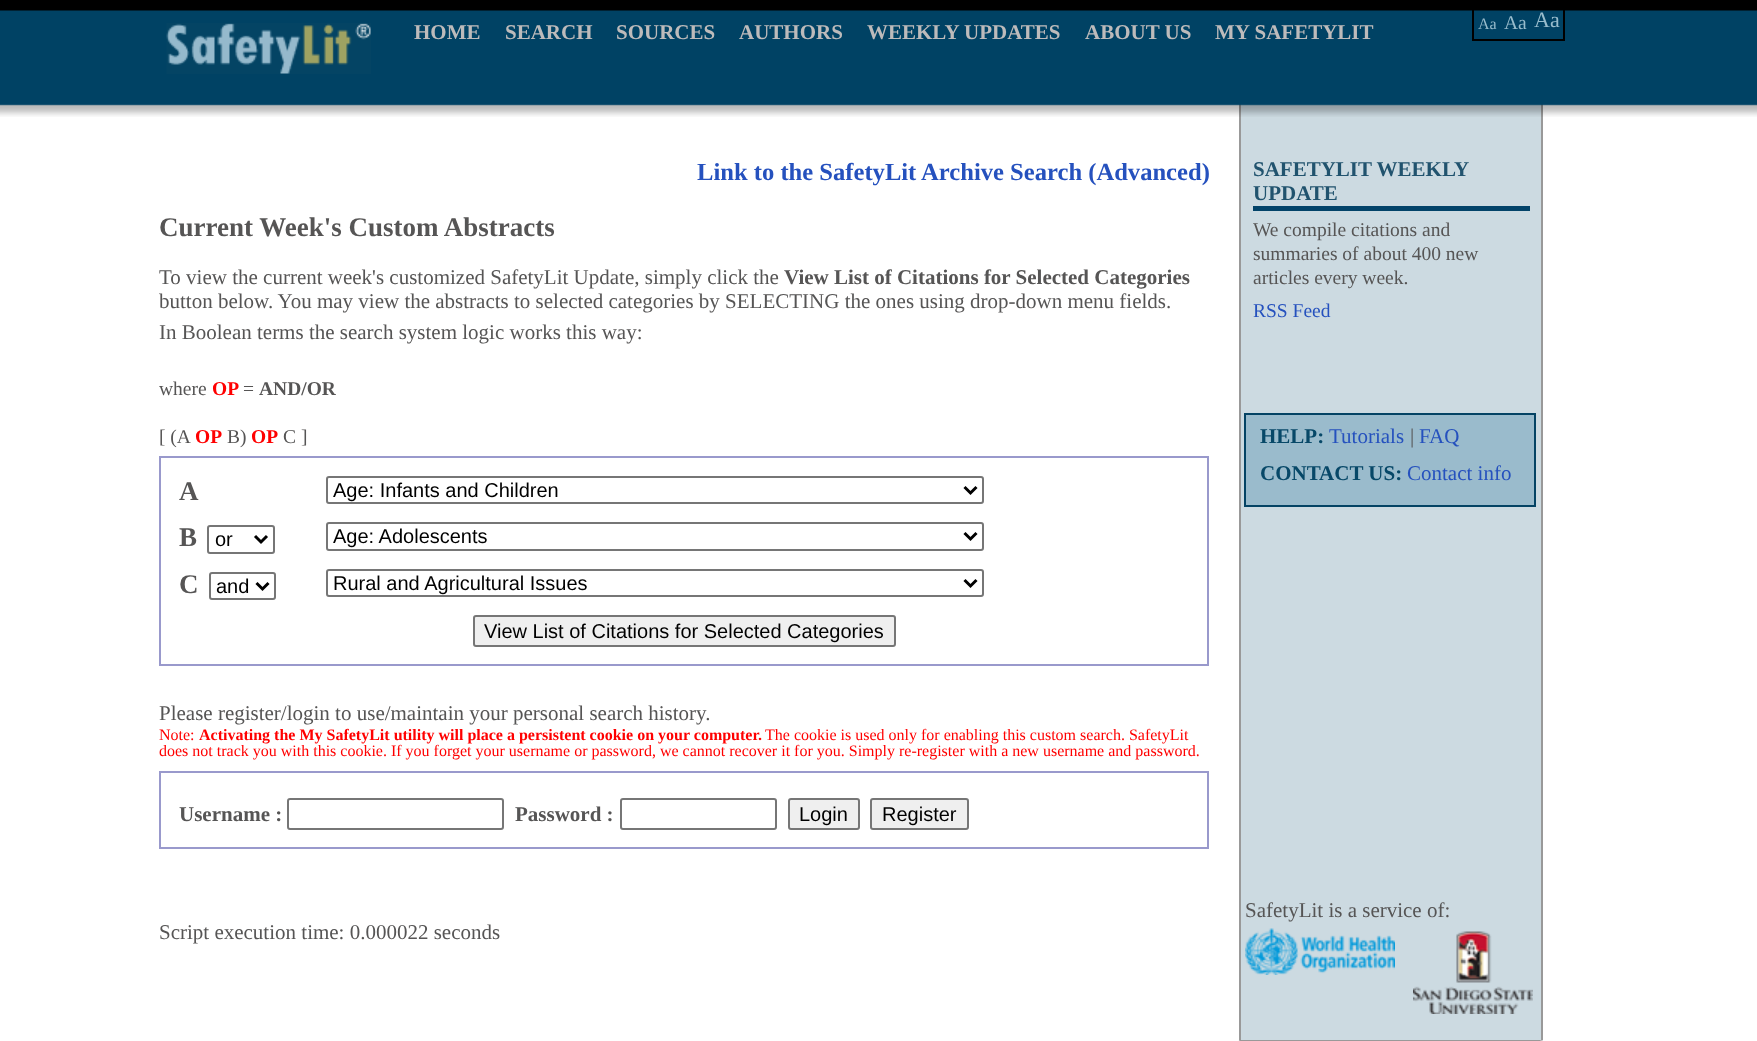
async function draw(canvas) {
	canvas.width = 1757;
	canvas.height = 1041;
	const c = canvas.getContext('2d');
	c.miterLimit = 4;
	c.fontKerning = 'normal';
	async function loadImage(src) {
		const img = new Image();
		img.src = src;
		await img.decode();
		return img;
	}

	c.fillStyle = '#fff';
	c.fillRect(0, 0, 1757, 1041);
	for (const [x, y, w, h, color] of [
		[1241, 104, 300, 937, '#ccdae1'],
		[1541, 104, 2, 937, '#999'],
		[1239, 104, 2, 937, '#999'],
	]) {
		c.fillStyle = color;
		c.fillRect(x, y, w, h);
	}
	c.drawImage(await loadImage('img1.png'), 0, 0, 1757, 117);
	c.strokeStyle = '#000';
	c.lineWidth = 2;
	c.strokeRect(1473, 1, 91, 39);
	c.font = '16px Liberation Serif';
	c.fillStyle = '#98bccc';
	c.fillText('Aa', 1478, 29);
	c.font = '19.5px Liberation Serif';
	c.fillText('Aa', 1504, 29);
	c.font = '22px Liberation Serif';
	c.fillText('Aa', 1534, 27);
	c.drawImage(await loadImage('img2.png'), 166, 23, 205, 51);
	c.font = 'bold 21px Liberation Serif';
	c.fillStyle = '#bdbbbb';
	for (const [text, x, y] of [
		['HOME', 414, 39],
		['SEARCH', 505, 39],
		['SOURCES', 616, 39],
		['AUTHORS', 739, 39],
		['WEEKLY UPDATES', 867, 39],
		['ABOUT US', 1085, 39],
		['MY SAFETYLIT', 1215, 39],
	]) {
		c.fillText(text, x, y);
	}
	c.font = 'bold 24.6px Liberation Serif';
	c.fillStyle = '#2551be';
	c.fillText('Link to the SafetyLit Archive Search (Advanced)', 697, 180);
	c.font = 'bold 27px Liberation Serif';
	c.fillStyle = '#565555';
	c.fillText('Current Week\'s Custom Abstracts', 159, 236);
	c.font = '21px Liberation Serif';
	c.fillText('To view the current week\'s customized SafetyLit Update, simply click the', 159, 284);
	c.font = 'bold 21px Liberation Serif';
	c.fillText('View List of Citations for Selected Categories', 784, 284);
	c.font = '21px Liberation Serif';
	c.fillText('button below. You may view the abstracts to selected categories by SELECTING the ones using drop-down menu fields.', 159, 308);
	c.fillText('In Boolean terms the search system logic works this way:', 159, 339);
	c.font = '19.5px Liberation Serif';
	c.fillText('where', 159, 395);
	c.font = 'bold 19.5px Liberation Serif';
	c.fillStyle = '#f00';
	c.fillText('OP', 212, 395);
	c.font = '19.5px Liberation Serif';
	c.fillStyle = '#565555';
	c.fillText('=', 243, 395);
	c.font = 'bold 19.5px Liberation Serif';
	c.fillText('AND/OR', 259, 395);
	c.font = '19.5px Liberation Serif';
	c.fillText('[ (A', 159, 443);
	c.font = 'bold 19.5px Liberation Serif';
	c.fillStyle = '#f00';
	c.fillText('OP', 195, 443);
	c.font = '19.5px Liberation Serif';
	c.fillStyle = '#565555';
	c.fillText('B)', 227, 443);
	c.font = 'bold 19.5px Liberation Serif';
	c.fillStyle = '#f00';
	c.fillText('OP', 251, 443);
	c.font = '19.5px Liberation Serif';
	c.fillStyle = '#565555';
	c.fillText('C ]', 283, 443);
	c.strokeStyle = '#99c';
	c.strokeRect(160, 457, 1048, 208);
	c.font = 'bold 27px Liberation Serif';
	c.fillText('A', 179, 500);
	c.beginPath();
	c.roundRect(327, 477, 656, 26, 2);
	c.strokeStyle = '#767676';
	c.stroke();
	c.beginPath();
	c.moveTo(964.5, 487);
	c.lineTo(970.5, 493);
	c.lineTo(976.5, 487);
	c.strokeStyle = '#000';
	c.lineWidth = 3;
	c.stroke();
	c.font = '20px Liberation Sans';
	c.fillStyle = '#000';
	c.fillText('Age: Infants and Children', 333, 497);
	c.font = 'bold 27px Liberation Serif';
	c.fillStyle = '#565555';
	c.fillText('B', 179, 546);
	c.beginPath();
	c.roundRect(208, 526, 66, 27, 2);
	c.strokeStyle = '#767676';
	c.lineWidth = 2;
	c.stroke();
	c.beginPath();
	c.moveTo(255, 536);
	c.lineTo(261, 542);
	c.lineTo(267, 536);
	c.strokeStyle = '#000';
	c.lineWidth = 3;
	c.stroke();
	c.font = '20px Liberation Sans';
	c.fillStyle = '#000';
	c.fillText('or', 215, 546);
	c.beginPath();
	c.roundRect(327, 523, 656, 27, 2);
	c.strokeStyle = '#767676';
	c.lineWidth = 2;
	c.stroke();
	c.beginPath();
	c.moveTo(964.5, 533);
	c.lineTo(970.5, 539);
	c.lineTo(976.5, 533);
	c.strokeStyle = '#000';
	c.lineWidth = 3;
	c.stroke();
	c.fillText('Age: Adolescents', 333, 543);
	c.font = 'bold 27px Liberation Serif';
	c.fillStyle = '#565555';
	c.fillText('C', 179, 593);
	c.beginPath();
	c.roundRect(210, 573, 65, 26, 2);
	c.strokeStyle = '#767676';
	c.lineWidth = 2;
	c.stroke();
	c.beginPath();
	c.moveTo(256.5, 583);
	c.lineTo(262.5, 589);
	c.lineTo(268.5, 583);
	c.strokeStyle = '#000';
	c.lineWidth = 3;
	c.stroke();
	c.font = '20px Liberation Sans';
	c.fillStyle = '#000';
	c.fillText('and', 216, 593);
	c.beginPath();
	c.roundRect(327, 570, 656, 26, 2);
	c.strokeStyle = '#767676';
	c.lineWidth = 2;
	c.stroke();
	c.beginPath();
	c.moveTo(964.5, 580);
	c.lineTo(970.5, 586);
	c.lineTo(976.5, 580);
	c.strokeStyle = '#000';
	c.lineWidth = 3;
	c.stroke();
	c.fillText('Rural and Agricultural Issues', 333, 590);
	c.fillStyle = '#efefef';
	c.beginPath();
	c.roundRect(474, 616, 421, 30, 2);
	c.fill();
	c.strokeStyle = '#767676';
	c.lineWidth = 2;
	c.stroke();
	c.fillStyle = '#000';
	c.fillText('View List of Citations for Selected Categories', 484, 638);
	c.font = '21px Liberation Serif';
	c.fillStyle = '#565555';
	c.fillText('Please register/login to use/maintain your personal search history.', 159, 720);
	c.font = '16px Liberation Serif';
	c.fillStyle = '#f00';
	c.fillText('Note:', 159, 740);
	c.font = 'bold 16px Liberation Serif';
	c.fillText('Activating the My SafetyLit utility will place a persistent cookie on your computer.', 199, 740);
	c.font = '16px Liberation Serif';
	c.fillText('The cookie is used only for enabling this custom search. SafetyLit', 765, 740);
	c.fillText('does not track you with this cookie. If you forget your username or password, we cannot recover it for you. Simply re-register with a new username and password.', 159, 756);
	c.strokeStyle = '#99c';
	c.strokeRect(160, 772, 1048, 76);
	c.font = 'bold 21px Liberation Serif';
	c.fillStyle = '#565555';
	c.fillText('Username :', 179, 821);
	c.beginPath();
	c.roundRect(288, 799, 215, 30, 2);
	c.strokeStyle = '#767676';
	c.stroke();
	c.fillText('Password :', 515, 821);
	c.beginPath();
	c.roundRect(621, 799, 155, 30, 2);
	c.stroke();
	c.fillStyle = '#efefef';
	c.beginPath();
	c.roundRect(789, 799, 70, 30, 2);
	c.fill();
	c.stroke();
	c.font = '20px Liberation Sans';
	c.fillStyle = '#000';
	c.fillText('Login', 799, 821);
	c.fillStyle = '#efefef';
	c.beginPath();
	c.roundRect(871, 799, 97, 30, 2);
	c.fill();
	c.stroke();
	c.fillStyle = '#000';
	c.fillText('Register', 882, 821);
	c.fillStyle = '#024369';
	c.fillRect(1253, 206, 277, 5);
	c.font = 'bold 21px Liberation Serif';
	c.fillStyle = '#21536e';
	c.fillText('SAFETYLIT WEEKLY', 1253, 176);
	c.fillText('UPDATE', 1253, 200);
	c.font = '19.5px Liberation Serif';
	c.fillStyle = '#565555';
	for (const [text, x, y] of [
		['We compile citations and', 1253, 236],
		['summaries of about 400 new', 1253, 260],
		['articles every week.', 1253, 284],
	]) {
		c.fillText(text, x, y);
	}
	c.fillStyle = '#2551be';
	c.fillText('RSS Feed', 1253, 317);
	c.fillStyle = '#9abbcc';
	c.beginPath();
	c.rect(1245, 414, 290, 92);
	c.fill();
	c.strokeStyle = '#044364';
	c.stroke();
	c.font = 'bold 21px Liberation Serif';
	c.fillStyle = '#074868';
	c.fillText('HELP:', 1260, 443);
	c.font = '21px Liberation Serif';
	c.fillStyle = '#2551be';
	c.fillText('Tutorials', 1329, 443);
	c.fillStyle = '#565555';
	c.fillText('|', 1410, 443);
	c.fillStyle = '#2551be';
	c.fillText('FAQ', 1419, 443);
	c.font = 'bold 21px Liberation Serif';
	c.fillStyle = '#074868';
	c.fillText('CONTACT US:', 1260, 480);
	c.font = '21px Liberation Serif';
	c.fillStyle = '#2551be';
	c.fillText('Contact info', 1407, 480);
	c.drawImage(await loadImage('img3.png'), 1245, 928, 150, 47);
	c.fillStyle = '#565555';
	c.fillText('SafetyLit is a service of:', 1245, 917);
	c.drawImage(await loadImage('img4.png'), 1413, 931, 120, 83);
	c.fillStyle = '#999';
	c.beginPath();
	c.moveTo(1238, 1040);
	c.lineTo(1544, 1040);
	c.lineTo(1540, 1041);
	c.lineTo(1240, 1041);
	c.closePath();
	c.fill();
	c.fillStyle = '#fff';
	c.beginPath();
	c.moveTo(1544, 1040);
	c.lineTo(1544, 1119);
	c.lineTo(1540, 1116);
	c.lineTo(1540, 1041);
	c.closePath();
	c.fill();
	c.beginPath();
	c.moveTo(1238, 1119);
	c.lineTo(1238, 1040);
	c.lineTo(1240, 1041);
	c.lineTo(1240, 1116);
	c.closePath();
	c.fill();
	c.fillStyle = '#565555';
	c.fillText('Script execution time: 0.000022 seconds', 159, 939);
}

draw(document.querySelector('canvas'));
